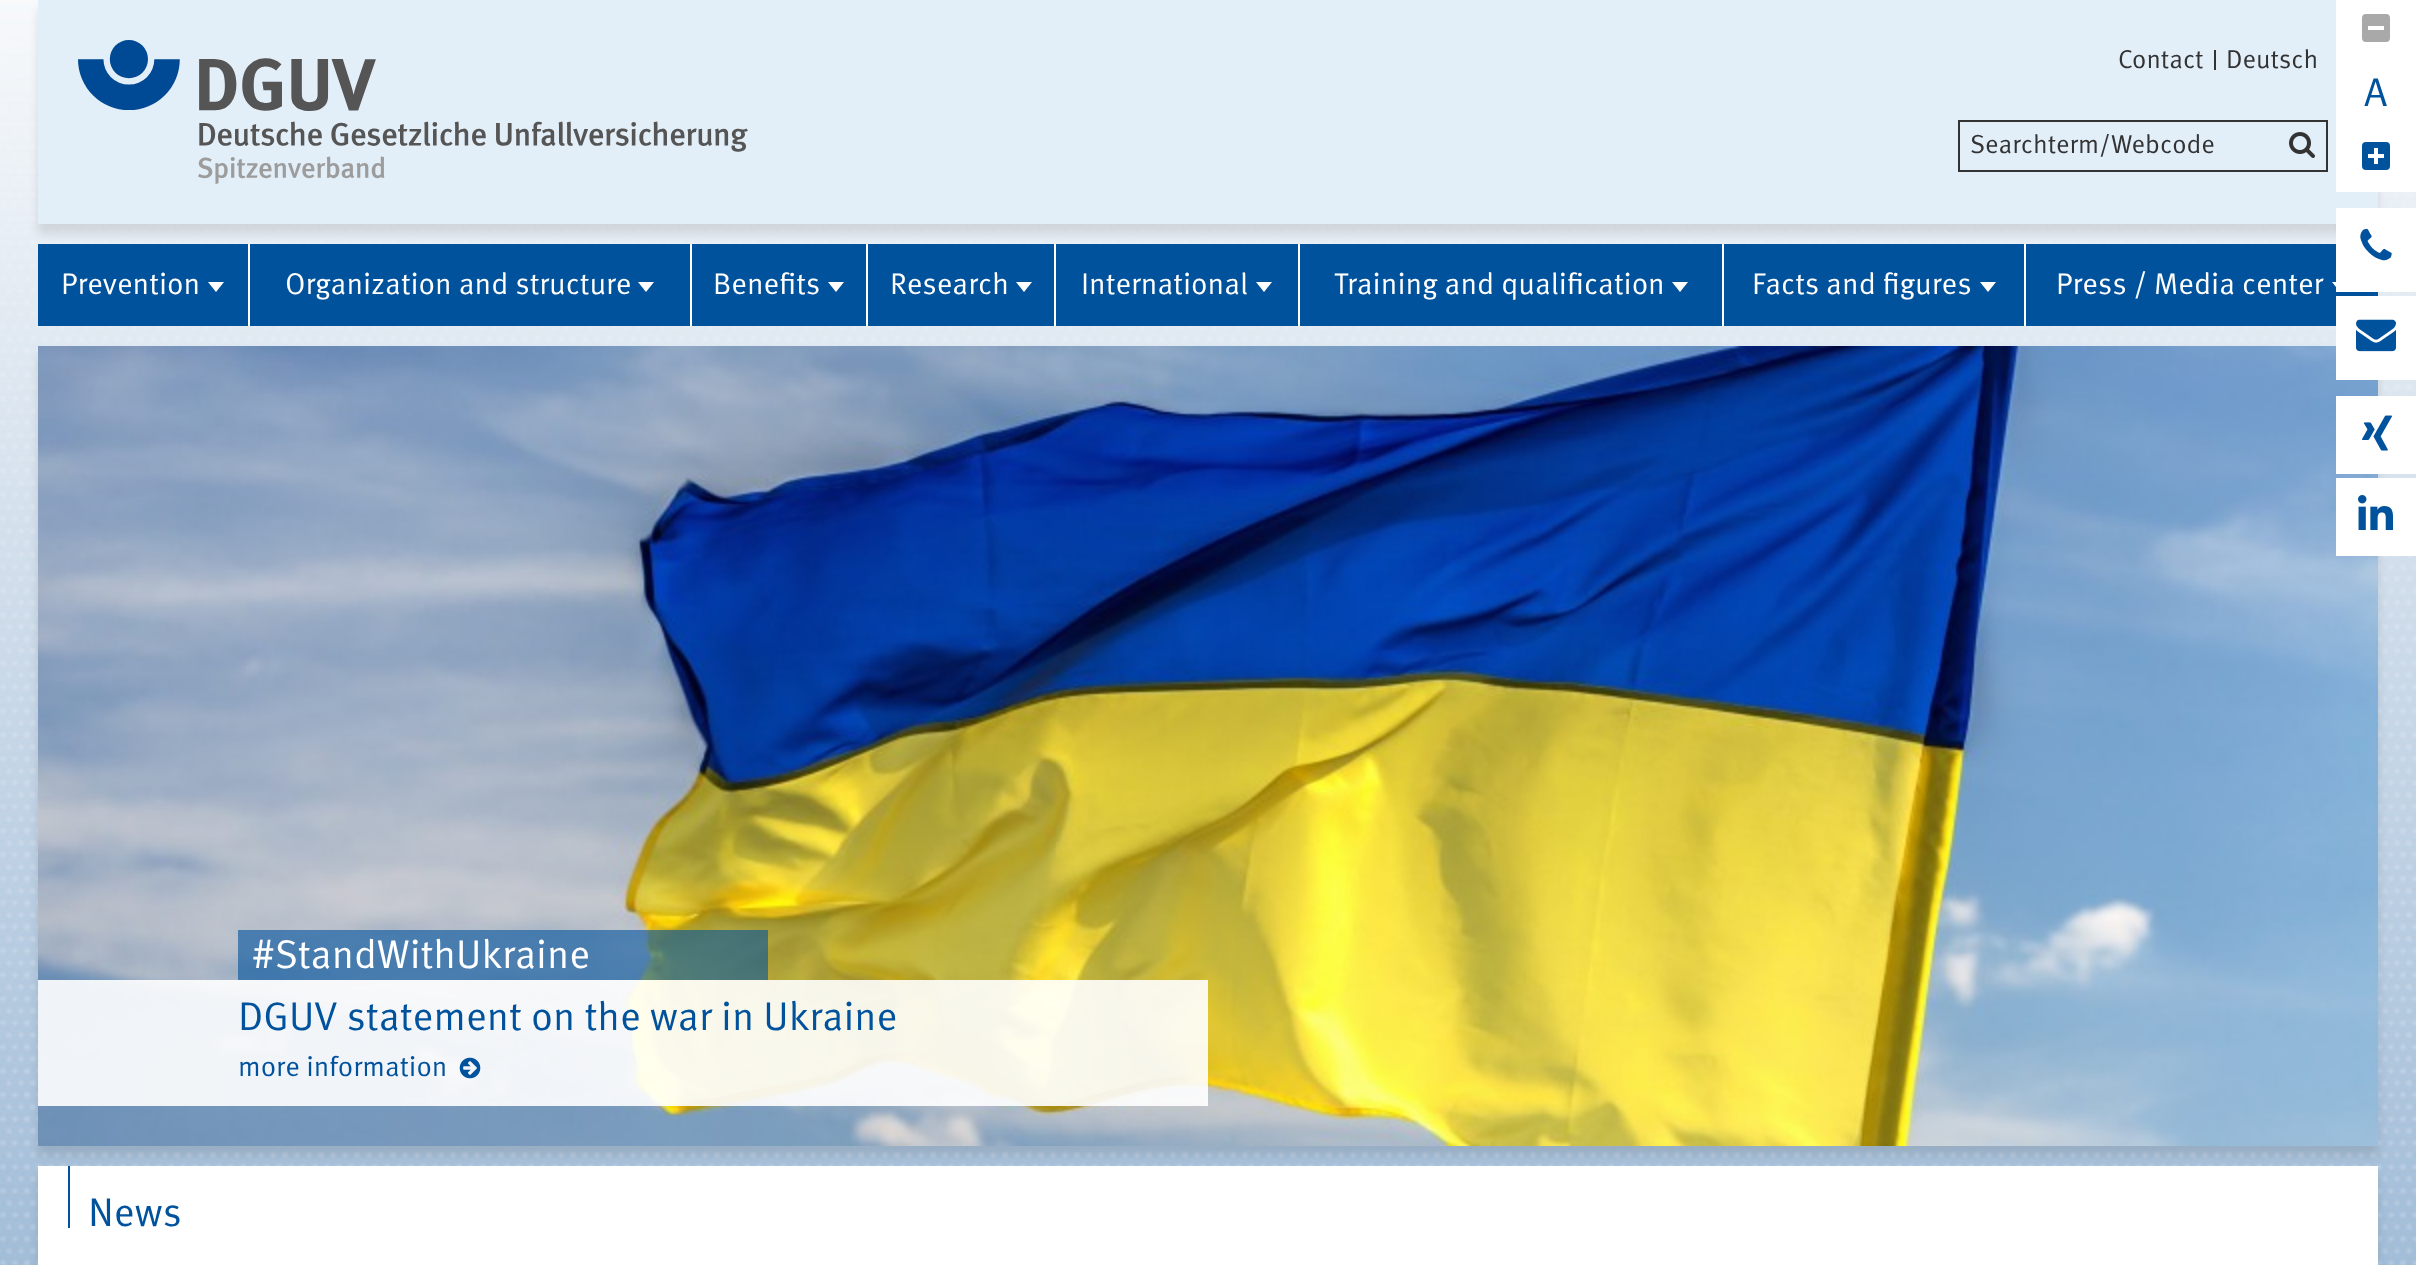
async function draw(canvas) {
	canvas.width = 2416;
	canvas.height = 1265;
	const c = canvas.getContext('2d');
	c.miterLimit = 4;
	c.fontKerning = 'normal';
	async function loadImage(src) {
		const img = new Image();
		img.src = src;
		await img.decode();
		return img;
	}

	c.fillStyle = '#fff';
	c.fillRect(0, 0, 2416, 1265);
	c.drawImage(await loadImage('img1.png'), 0, 0, 2416, 1265);
	c.fillStyle = '#0000001a';
	c.filter = 'blur(5px)';
	c.beginPath();
	c.rect(38, 10, 2340, 224);
	c.fill();
	c.filter = 'none';
	c.fillStyle = '#e2eef8';
	c.fillRect(38, 0, 2340, 224);
	c.drawImage(await loadImage('img2.png'), 78, 40, 670, 144);
	c.fillStyle = '#333';
	c.fillRect(2214, 50, 2, 20);
	c.font = '26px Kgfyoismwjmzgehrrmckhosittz';
	c.fillText('Contact', 2118, 68);
	c.fillText('Deutsch', 2226, 68);
	c.fillStyle = '#fff';
	c.fillRect(2336, 0, 80, 192);
	c.fillStyle = '#a9a9a9';
	c.beginPath();
	c.roundRect(2362, 14, 28, 28, 4);
	c.fill();
	c.fillStyle = '#fff';
	c.fillRect(2368, 26, 16, 4);
	c.font = '40px Kgfyoismwjmzgehrrmckhosittz';
	c.fillStyle = '#00529c';
	c.fillText('A', 2364, 106);
	c.beginPath();
	c.roundRect(2362, 142, 28, 28, 4);
	c.fill();
	for (const [x, y, w, h, color] of [
		[2368, 154, 16, 4, '#fff'],
		[2374, 148, 4, 16, '#fff'],
		[38, 244, 2340, 82, '#00529c'],
	]) {
		c.fillStyle = color;
		c.fillRect(x, y, w, h);
	}
	c.fillStyle = '#fff';
	c.beginPath();
	c.moveTo(2332, 282);
	c.lineTo(2348, 282);
	c.lineTo(2340, 292);
	c.closePath();
	c.fill();
	c.fillRect(2336, 208, 80, 84);
	c.drawImage(await loadImage('img3.png'), 2360, 228, 32, 33);
	c.fillStyle = '#0000001a';
	c.filter = 'blur(5px)';
	c.beginPath();
	c.rect(38, 356, 2340, 800);
	c.fill();
	c.filter = 'none';
	c.drawImage(await loadImage('img8.png'), 38, 346, 2340, 800);
	c.fillStyle = '#fff';
	c.fillRect(2336, 296, 80, 84);
	c.drawImage(await loadImage('img4.png'), 2356, 319, 40, 33);
	c.fillRect(2336, 396, 80, 78);
	c.drawImage(await loadImage('img5.png'), 2362, 415, 30, 36);
	c.fillRect(2336, 478, 80, 78);
	c.drawImage(await loadImage('img6.png'), 2358, 495, 35, 35);
	c.strokeStyle = '#333';
	c.lineWidth = 2;
	c.strokeRect(1959, 121, 368, 50);
	c.save();
	c.beginPath();
	c.rect(1970, 134, 310, 26);
	c.clip();
	c.font = '26px Kgfyoismwjmzgehrrmckhosittz';
	c.fillStyle = '#333';
	c.fillText('Searchterm/Webcode', 1970, 153);
	c.restore();
	c.drawImage(await loadImage('img7.png'), 2289, 132, 26, 26);
	c.fillRect(248, 244, 2, 82);
	c.font = '30px Kgfyoismwjmzgehrrmckhosittz';
	c.fillText('Prevention', 61, 294);
	c.beginPath();
	c.moveTo(208, 282);
	c.lineTo(224, 282);
	c.lineTo(216, 292);
	c.closePath();
	c.fill();
	c.fillRect(690, 244, 2, 82);
	c.fillText('Organization and structure', 285, 294);
	c.beginPath();
	c.moveTo(638, 282);
	c.lineTo(654, 282);
	c.lineTo(646, 292);
	c.closePath();
	c.fill();
	c.fillRect(866, 244, 2, 82);
	c.fillText('Benefits', 713, 294);
	c.beginPath();
	c.moveTo(828, 282);
	c.lineTo(844, 282);
	c.lineTo(836, 292);
	c.closePath();
	c.fill();
	c.fillRect(1054, 244, 2, 82);
	c.fillText('Research', 890, 294);
	c.beginPath();
	c.moveTo(1016, 282);
	c.lineTo(1032, 282);
	c.lineTo(1024, 292);
	c.closePath();
	c.fill();
	c.fillRect(1298, 244, 2, 82);
	c.fillText('International', 1081, 294);
	c.beginPath();
	c.moveTo(1256, 282);
	c.lineTo(1272, 282);
	c.lineTo(1264, 292);
	c.closePath();
	c.fill();
	c.fillRect(1722, 244, 2, 82);
	c.fillText('Training and qualification', 1334, 294);
	c.beginPath();
	c.moveTo(1672, 282);
	c.lineTo(1688, 282);
	c.lineTo(1680, 292);
	c.closePath();
	c.fill();
	c.fillRect(2024, 244, 2, 82);
	c.fillText('Facts and figures', 1752, 294);
	c.beginPath();
	c.moveTo(1980, 282);
	c.lineTo(1996, 282);
	c.lineTo(1988, 292);
	c.closePath();
	c.fill();
	c.fillText('Press / Media center', 2056, 294);
	c.fillStyle = '#ffffffe6';
	c.fillRect(38, 980, 1170, 126);
	c.fillStyle = '#00529c99';
	c.fillRect(238, 930, 530, 50);
	c.font = '40px Kgfyoismwjmzgehrrmckhosittz';
	c.fillStyle = '#fff';
	c.fillText('#StandWithUkraine', 252, 968);
	c.fillStyle = '#00529c';
	c.fillText('DGUV statement on the war in Ukraine', 238, 1030);
	c.font = '28px Kgfyoismwjmzgehrrmckhosittz';
	c.fillText('more information', 238, 1076);
	c.drawImage(await loadImage('img9.png'), 459, 1057, 22, 22);
	c.fillStyle = '#0000001a';
	c.filter = 'blur(5px)';
	c.beginPath();
	c.rect(38, 1176, 2340, 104);
	c.fill();
	c.filter = 'none';
	c.fillStyle = '#fff';
	c.fillRect(38, 1166, 2340, 99);
	c.fillStyle = '#00529c';
	c.fillRect(68, 1166, 2, 62);
	c.font = '40px Kgfyoismwjmzgehrrmckhosittz';
	c.fillText('News', 88, 1226);
}

draw(document.querySelector('canvas'));
